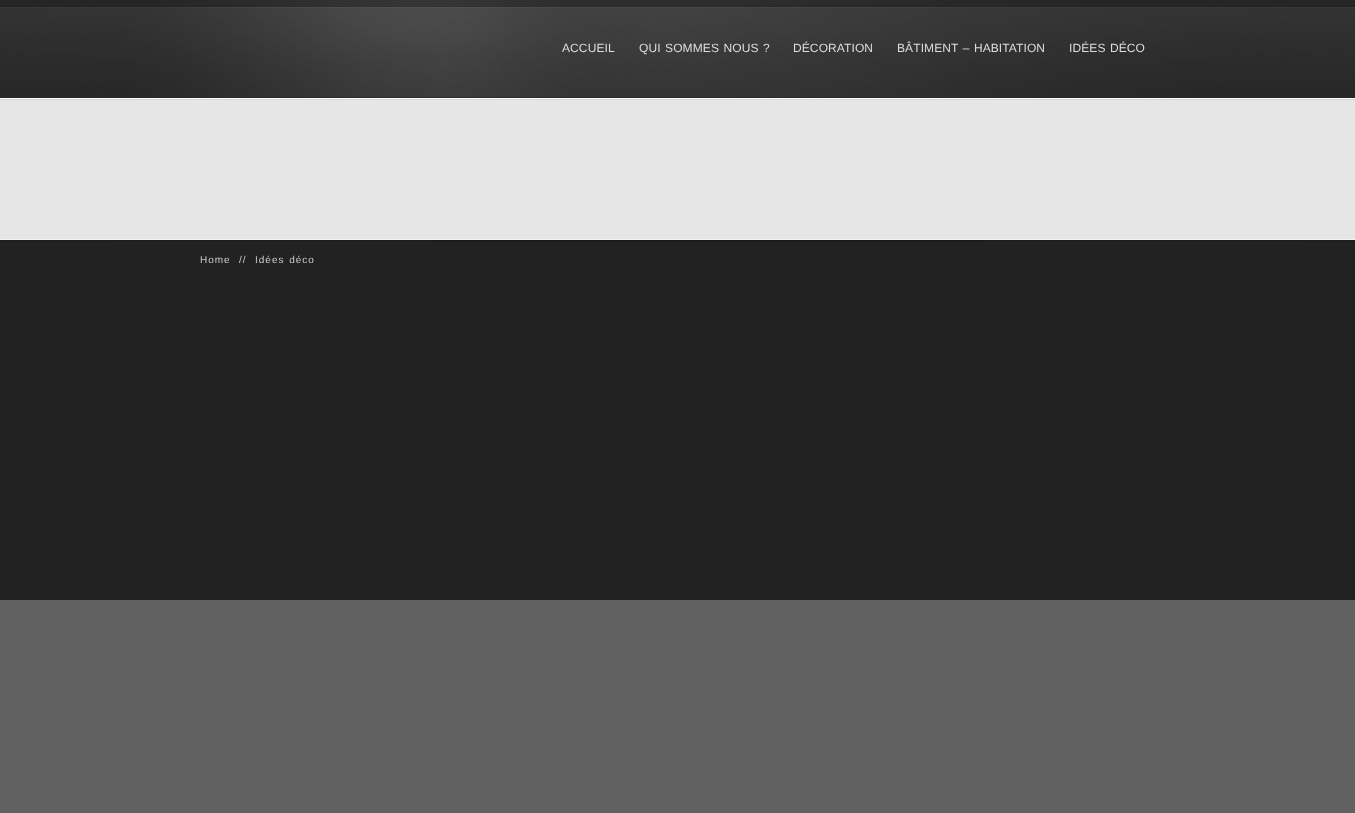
async function draw(canvas) {
	canvas.width = 1355;
	canvas.height = 813;
	const c = canvas.getContext('2d');
	c.miterLimit = 4;
	c.fontKerning = 'normal';
	async function loadImage(src) {
		const img = new Image();
		img.src = src;
		await img.decode();
		return img;
	}

	c.fillStyle = '#616161';
	c.fillRect(0, 0, 1355, 813);
	c.drawImage(await loadImage('img1.png'), 0, 0, 1355, 100);
	c.letterSpacing = '0.1px';
	c.font = '12px Liberation Sans';
	c.fillStyle = '#ddd';
	c.fillText('ACCUEIL', 562, 52);
	c.wordSpacing = '1px';
	c.fillText('QUI SOMMES NOUS ?', 639, 52);
	c.wordSpacing = '0px';
	c.fillText('DÉCORATION', 793, 52);
	c.wordSpacing = '1px';
	c.fillText('BÂTIMENT – HABITATION', 897, 52);
	c.fillText('IDÉES DÉCO', 1069, 52);
	for (const [x, y, w, h, color] of [
		[0, 100, 1355, 139, '#e6e6e6'],
		[0, 239, 1355, 1, '#f3f3f3'],
		[0, 240, 1355, 360, '#222'],
	]) {
		c.fillStyle = color;
		c.fillRect(x, y, w, h);
	}
	c.drawImage(await loadImage('img2.png'), 0, 240, 1355, 2);
	c.letterSpacing = '1px';
	c.wordSpacing = '0px';
	c.font = '10px Liberation Sans';
	c.fillStyle = '#ccc';
	c.fillText('Home', 200, 263);
	c.fillText('//', 239, 263);
	c.wordSpacing = '1px';
	c.fillText('Idées déco', 255, 263);
}

draw(document.querySelector('canvas'));
